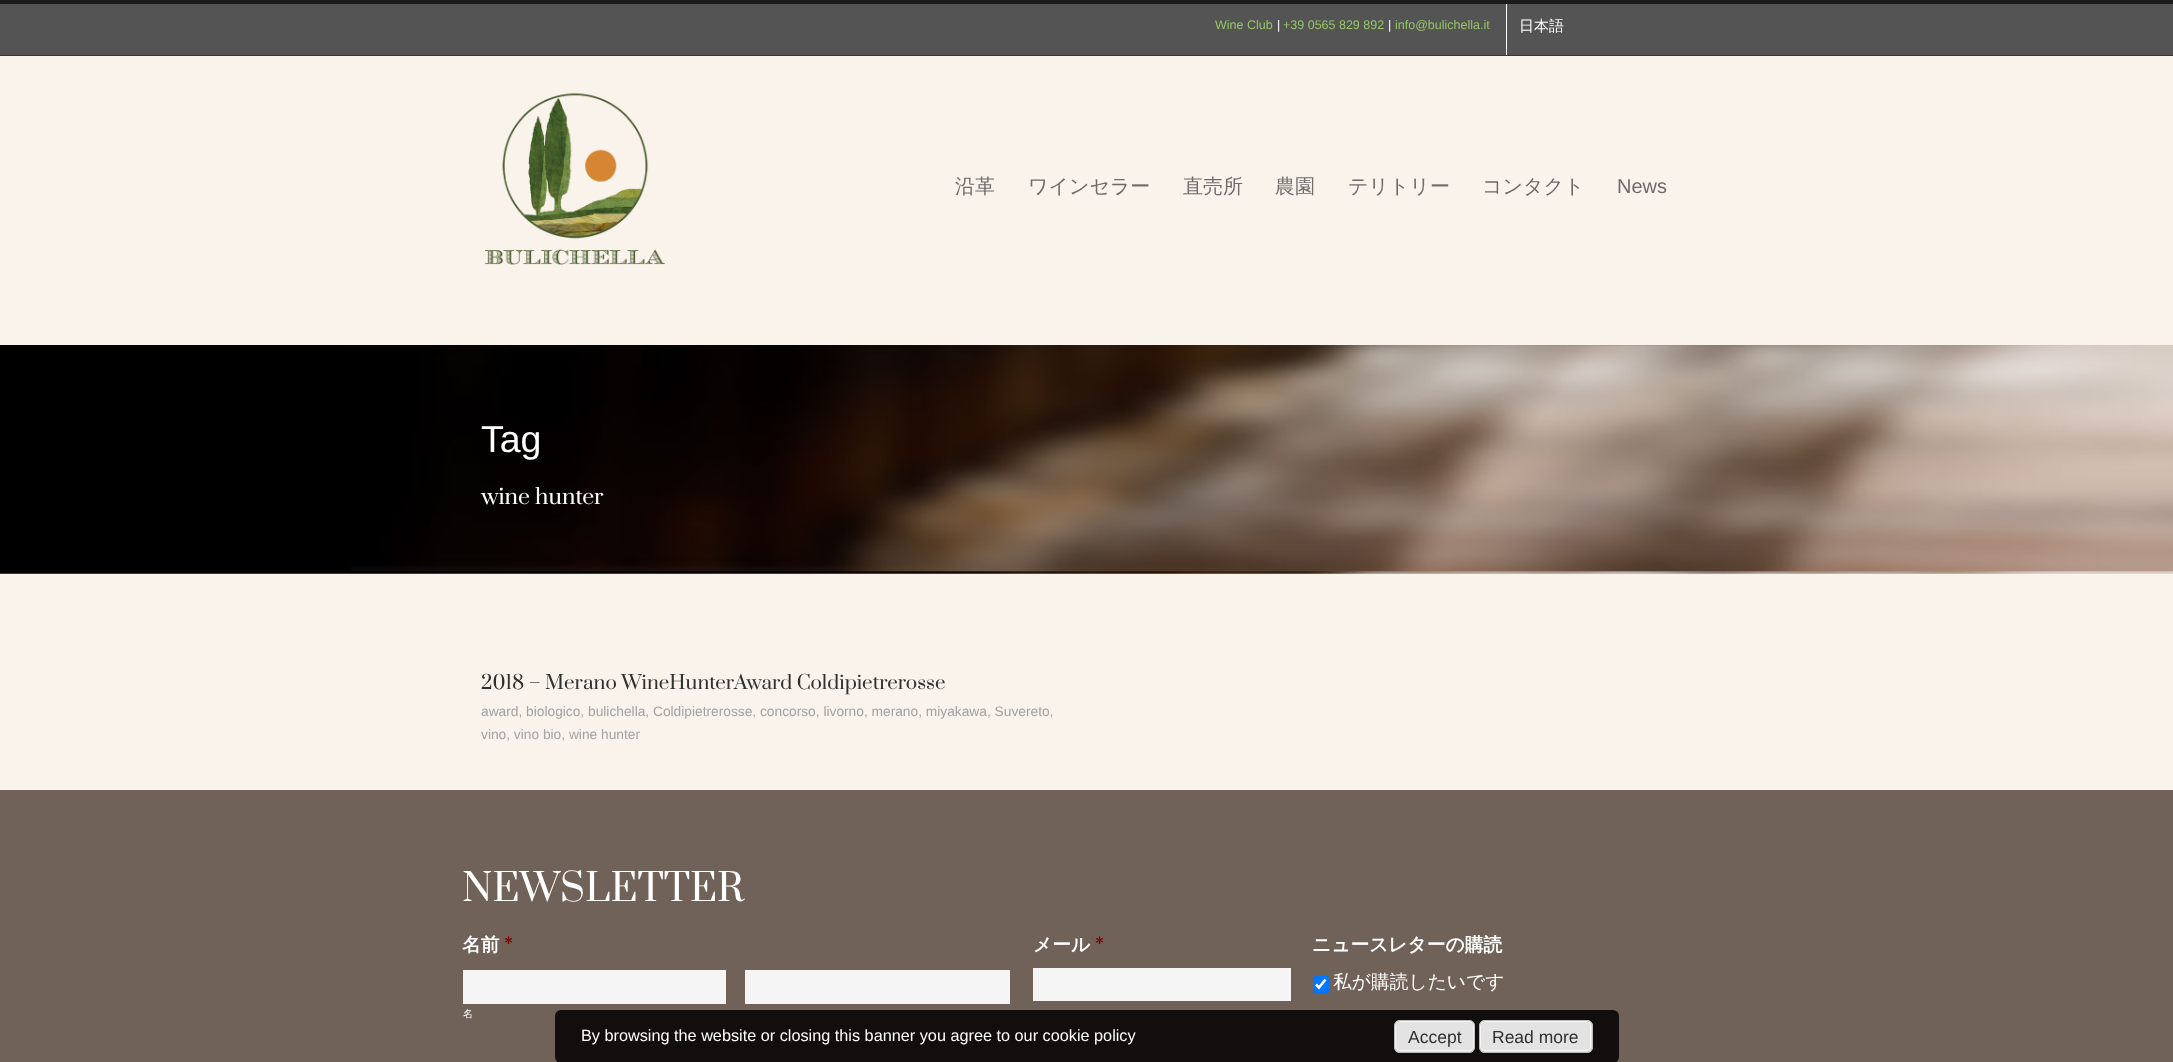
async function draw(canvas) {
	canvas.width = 2173;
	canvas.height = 1062;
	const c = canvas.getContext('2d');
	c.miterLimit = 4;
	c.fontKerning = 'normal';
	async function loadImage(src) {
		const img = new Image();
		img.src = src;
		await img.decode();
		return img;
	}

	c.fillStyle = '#faf3ec';
	c.fillRect(0, 0, 2173, 1062);
	for (const [x, y, w, h, color] of [
		[0, 4, 2173, 51, '#545454'],
		[0, 0, 2173, 4, '#1b1b1b'],
		[0, 55, 2173, 1, '#353535'],
	]) {
		c.fillStyle = color;
		c.fillRect(x, y, w, h);
	}
	c.font = '12.5px Liberation Sans';
	c.fillStyle = '#97c566';
	c.fillText('Wine Club', 1215, 29);
	c.fillStyle = '#fff';
	c.fillText('|', 1277, 29);
	c.fillStyle = '#97c566';
	c.fillText('+39 0565 829 892', 1283, 29);
	c.fillStyle = '#fff';
	c.fillText('|', 1388, 29);
	c.fillStyle = '#97c566';
	c.fillText('info@bulichella.it', 1395, 29);
	c.fillStyle = '#fff';
	c.fillRect(1506, 4, 1, 51);
	c.font = '500 15px WenQuanYi Zen Hei';
	c.fillText('日本語', 1519, 31);
	c.drawImage(await loadImage('img1.png'), 485, 93, 180, 172);
	c.font = '500 20px WenQuanYi Zen Hei';
	c.fillStyle = '#6f6b6b';
	for (const [text, x, y] of [
		['沿革', 955, 193],
		['ワインセラー', 1028, 193],
		['直売所', 1183, 193],
		['農園', 1275, 193],
		['テリトリー', 1348, 193],
		['コンタクト', 1482, 193],
	]) {
		c.fillText(text, x, y);
	}
	c.font = '20px Liberation Sans';
	c.fillText('News', 1617, 193);
	c.drawImage(await loadImage('img2.png'), 0, 345, 2173, 229);
	c.font = '37.5px Liberation Sans';
	c.fillStyle = '#fff';
	c.fillText('Tag', 481, 452);
	c.font = '21.25px Prata';
	c.fillText('wine hunter', 481, 504);
	c.font = '18.75px Prata';
	c.fillStyle = '#303030';
	c.fillText('2018 – Merano WineHunterAward Coldipietrerosse', 481, 689);
	c.font = '13.75px Liberation Sans';
	c.fillStyle = '#a2a2a2';
	c.fillText('award, biologico, bulichella, Coldipietrerosse, concorso, livorno, merano, miyakawa, Suvereto,', 481, 716);
	c.fillText('vino, vino bio, wine hunter', 481, 739);
	c.fillStyle = '#706259';
	c.fillRect(0, 790, 2173, 272);
	c.font = '37.5px Prata';
	c.fillStyle = '#fff';
	c.fillText('NEWSLETTER', 462, 901);
	c.font = 'bold 18.75px WenQuanYi Zen Hei';
	c.fillText('名前', 462, 951);
	c.font = 'bold 18.75px Prata';
	c.fillStyle = '#790000';
	c.fillText('*', 504, 951);
	c.fillStyle = '#f5f5f5';
	c.fillRect(745, 970, 265, 34);
	c.fillRect(463, 970, 263, 34);
	c.letterSpacing = '1px';
	c.font = '500 10px WenQuanYi Zen Hei';
	c.fillStyle = '#fff';
	c.fillText('名', 463, 1017);
	c.letterSpacing = '0px';
	c.font = 'bold 18.75px WenQuanYi Zen Hei';
	c.fillText('メール', 1033, 951);
	c.font = 'bold 18.75px Prata';
	c.fillStyle = '#790000';
	c.fillText('*', 1095, 951);
	c.fillStyle = '#f5f5f5';
	c.fillRect(1033, 968, 258, 33);
	c.font = 'bold 18.75px WenQuanYi Zen Hei';
	c.fillStyle = '#fff';
	c.fillText('ニュースレターの購読', 1312, 951);
	c.fillStyle = '#0075ff';
	c.beginPath();
	c.roundRect(1313, 976, 16, 17, 2.5);
	c.fill();
	c.beginPath();
	c.moveTo(1316, 984.5);
	c.lineTo(1319, 987.5);
	c.lineTo(1325.5, 979.5);
	c.strokeStyle = '#fff';
	c.lineWidth = 2.6;
	c.stroke();
	c.font = '500 18.75px WenQuanYi Zen Hei';
	c.fillStyle = '#fff';
	c.fillText('私が購読したいです', 1333, 988);
	c.fillStyle = '#000000d9';
	c.beginPath();
	c.roundRect(555, 1010, 1064, 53, 6);
	c.fill();
	c.font = '16.25px Liberation Sans';
	c.fillStyle = '#fff';
	c.fillText('By browsing the website or closing this banner you agree to our cookie policy', 581, 1041);
	c.fillStyle = '#e3e3e3';
	c.beginPath();
	c.roundRect(1394, 1020, 81, 33, 6);
	c.fill();
	c.beginPath();
	c.roundRect(1395.5, 1021.5, 78, 29, 4.5);
	c.strokeStyle = '#f6f6f6';
	c.lineWidth = 1;
	c.stroke();
	c.beginPath();
	c.roundRect(1394.5, 1020.5, 80, 32, 5.5);
	c.strokeStyle = '#bbb';
	c.stroke();
	c.font = '17.5px Liberation Sans';
	c.fillStyle = '#303030';
	c.fillText('Accept', 1408, 1043);
	c.fillStyle = '#e3e3e3';
	c.beginPath();
	c.roundRect(1479, 1020, 114, 33, 6);
	c.fill();
	c.beginPath();
	c.roundRect(1480.5, 1021.5, 110, 29, 4.5);
	c.strokeStyle = '#f6f6f6';
	c.stroke();
	c.beginPath();
	c.roundRect(1479.5, 1020.5, 113, 32, 5.5);
	c.strokeStyle = '#bbb';
	c.stroke();
	c.fillStyle = '#303030';
	c.fillText('Read more', 1492, 1043);
}

draw(document.querySelector('canvas'));
